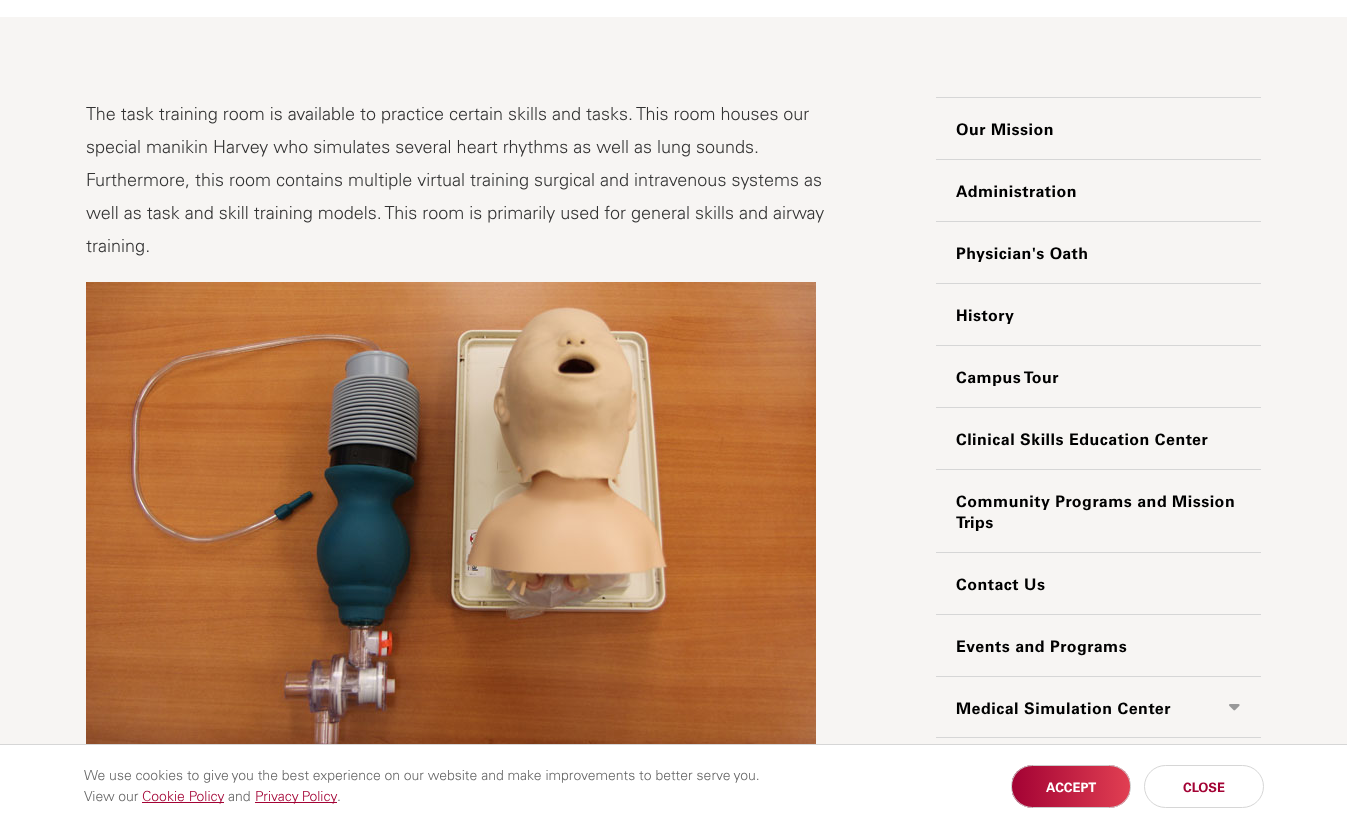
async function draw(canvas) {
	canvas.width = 1347;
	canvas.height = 831;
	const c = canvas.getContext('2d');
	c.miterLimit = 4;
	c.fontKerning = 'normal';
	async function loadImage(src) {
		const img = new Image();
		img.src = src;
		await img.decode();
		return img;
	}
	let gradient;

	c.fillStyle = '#f7f5f3';
	c.fillRect(0, 0, 1347, 831);
	c.fillStyle = '#fff';
	c.fillRect(0, 0, 1347, 17);
	c.font = '300 18px "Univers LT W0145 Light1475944"';
	c.fillStyle = '#333';
	for (const [text, x, y] of [
		['The task training room is available to practice certain skills and tasks. This room houses our', 86, 120],
		['special manikin Harvey who simulates several heart rhythms as well as lung sounds.', 86, 153],
		['Furthermore, this room contains multiple virtual training surgical and intravenous systems as', 86, 186],
		['well as task and skill training models. This room is primarily used for general skills and airway', 86, 219],
		['training.', 86, 252],
	]) {
		c.fillText(text, x, y);
	}
	c.drawImage(await loadImage('img1.png'), 86, 282, 730, 462);
	c.fillStyle = '#d6d6d6';
	c.fillRect(936, 97, 325, 1);
	c.fillRect(936, 159, 325, 1);
	c.letterSpacing = '0.5px';
	c.font = 'bold 16px "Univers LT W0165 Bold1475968"';
	c.fillStyle = '#000';
	c.fillText('Our Mission', 956, 135);
	c.fillStyle = '#d6d6d6';
	c.fillRect(936, 221, 325, 1);
	c.fillStyle = '#000';
	c.fillText('Administration', 956, 197);
	c.fillStyle = '#d6d6d6';
	c.fillRect(936, 283, 325, 1);
	c.fillStyle = '#000';
	c.fillText('Physician\'s Oath', 956, 259);
	c.fillStyle = '#d6d6d6';
	c.fillRect(936, 345, 325, 1);
	c.fillStyle = '#000';
	c.fillText('History', 956, 321);
	c.fillStyle = '#d6d6d6';
	c.fillRect(936, 407, 325, 1);
	c.fillStyle = '#000';
	c.fillText('Campus Tour', 956, 383);
	c.fillStyle = '#d6d6d6';
	c.fillRect(936, 469, 325, 1);
	c.fillStyle = '#000';
	c.fillText('Clinical Skills Education Center', 956, 445);
	c.fillStyle = '#d6d6d6';
	c.fillRect(936, 552, 325, 1);
	c.fillStyle = '#000';
	c.fillText('Community Programs and Mission', 956, 507);
	c.fillText('Trips', 956, 528);
	c.fillStyle = '#d6d6d6';
	c.fillRect(936, 614, 325, 1);
	c.fillStyle = '#000';
	c.fillText('Contact Us', 956, 590);
	c.fillStyle = '#d6d6d6';
	c.fillRect(936, 676, 325, 1);
	c.fillStyle = '#000';
	c.fillText('Events and Programs', 956, 652);
	c.fillText('Medical Simulation Center', 956, 714);
	c.drawImage(await loadImage('img2.png'), 1229, 704, 11, 7);
	for (const [x, y, w, h, color] of [
		[936, 737, 325, 1, '#d6d6d6'],
		[0, 745, 1347, 86, '#fff'],
		[0, 744, 1347, 1, '#d6d6d6'],
	]) {
		c.fillStyle = color;
		c.fillRect(x, y, w, h);
	}
	c.letterSpacing = '0px';
	c.font = '300 14px "Univers LT W0145 Light1475944"';
	c.fillStyle = '#666';
	c.fillText('We use cookies to give you the best experience on our website and make improvements to better serve you.', 84, 780);
	c.fillText('View our', 84, 801);
	c.fillStyle = '#a30234';
	c.fillRect(142, 802, 82, 1);
	c.fillText('Cookie Policy', 142, 801);
	c.fillStyle = '#666';
	c.fillText('and', 228, 801);
	c.fillStyle = '#a30234';
	c.fillRect(255, 802, 82, 1);
	c.wordSpacing = '-1px';
	c.fillText('Privacy Policy', 255, 801);
	c.wordSpacing = '0px';
	c.fillStyle = '#666';
	c.fillText('.', 337, 801);
	c.save();
	c.beginPath();
	c.roundRect(1011, 765, 120, 43, 21.5);
	c.clip();
	gradient = c.createLinearGradient(1012, 787, 1130, 787);
	gradient.addColorStop(0, '#a30234');
	gradient.addColorStop(1, '#e13f52');
	c.fillStyle = gradient;
	c.fillRect(1012, 765, 118, 43);
	c.restore();
	c.beginPath();
	c.roundRect(1011.5, 765.5, 119, 42, 21);
	c.strokeStyle = '#ccc';
	c.stroke();
	c.font = 'bold 13px "Univers LT W0165 Bold1475968"';
	c.fillStyle = '#fff';
	c.fillText('ACCEPT', 1046, 792);
	c.beginPath();
	c.roundRect(1144.5, 765.5, 119, 42, 21);
	c.strokeStyle = '#d6d6d6';
	c.stroke();
	c.fillStyle = '#a30234';
	c.fillText('CLOSE', 1183, 792);
}

draw(document.querySelector('canvas'));
